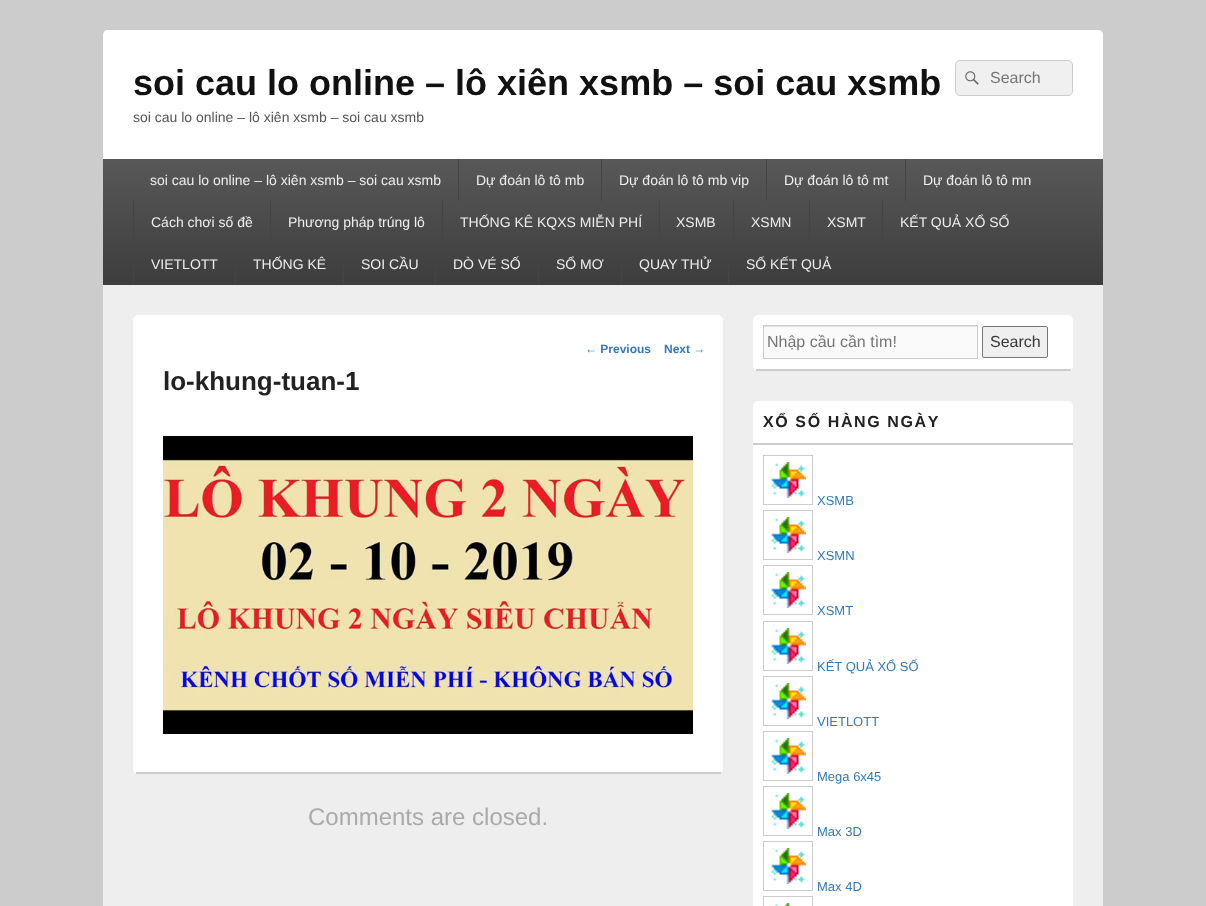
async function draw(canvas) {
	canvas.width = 1206;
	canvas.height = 906;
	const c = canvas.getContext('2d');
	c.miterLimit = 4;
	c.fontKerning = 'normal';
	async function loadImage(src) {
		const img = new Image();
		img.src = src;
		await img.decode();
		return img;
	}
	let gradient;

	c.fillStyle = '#ccc';
	c.fillRect(0, 0, 1206, 906);
	c.fillStyle = '#eee';
	c.beginPath();
	c.roundRect(103, 30, 1000, 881, 5);
	c.fill();
	c.fillStyle = '#fff';
	c.beginPath();
	c.roundRect(103, 30, 1000, 255, [5, 5, 0, 0]);
	c.fill();
	c.font = 'bold 36px Liberation Sans';
	c.fillStyle = '#111';
	c.fillText('soi cau lo online – lô xiên xsmb – soi cau xsmb', 133, 95);
	c.font = '14px Liberation Sans';
	c.fillStyle = '#555';
	c.fillText('soi cau lo online – lô xiên xsmb – soi cau xsmb', 133, 122);
	c.fillStyle = '#f0f0f0';
	c.beginPath();
	c.roundRect(955.5, 60.5, 117, 35, 4.5);
	c.fill();
	c.strokeStyle = '#ccc';
	c.stroke();
	c.drawImage(await loadImage('img1.png'), 965, 71, 14, 14);
	c.font = '16px Liberation Sans';
	c.fillStyle = '#757575';
	c.fillText('Search', 990, 83);
	gradient = c.createLinearGradient(603, 159, 603, 285);
	gradient.addColorStop(0, '#585858');
	gradient.addColorStop(1, '#3d3d3d');
	c.fillStyle = gradient;
	c.fillRect(103, 159, 1000, 126);
	c.font = '14px Liberation Sans';
	c.fillStyle = '#eee';
	c.fillText('soi cau lo online – lô xiên xsmb – soi cau xsmb', 150, 185);
	c.fillStyle = '#444';
	c.fillRect(458, 159, 1, 42);
	c.fillStyle = '#eee';
	c.fillText('Dự đoán lô tô mb', 476, 185);
	c.fillStyle = '#444';
	c.fillRect(601, 159, 1, 42);
	c.fillStyle = '#eee';
	c.fillText('Dự đoán lô tô mb vip', 619, 185);
	c.fillStyle = '#444';
	c.fillRect(766, 159, 1, 42);
	c.fillStyle = '#eee';
	c.fillText('Dự đoán lô tô mt', 784, 185);
	c.fillStyle = '#444';
	c.fillRect(905, 159, 1, 42);
	c.fillStyle = '#eee';
	c.fillText('Dự đoán lô tô mn', 923, 185);
	c.fillStyle = '#444';
	c.fillRect(133, 201, 1, 42);
	c.fillStyle = '#eee';
	c.fillText('Cách chơi số đề', 151, 227);
	c.fillStyle = '#444';
	c.fillRect(270, 201, 1, 42);
	c.fillStyle = '#eee';
	c.fillText('Phương pháp trúng lô', 288, 227);
	c.fillStyle = '#444';
	c.fillRect(442, 201, 1, 42);
	c.fillStyle = '#eee';
	c.fillText('THỐNG KÊ KQXS MIỄN PHÍ', 460, 227);
	c.fillStyle = '#444';
	c.fillRect(659, 201, 1, 42);
	c.fillStyle = '#eee';
	c.fillText('XSMB', 676, 227);
	c.fillStyle = '#444';
	c.fillRect(733, 201, 1, 42);
	c.fillStyle = '#eee';
	c.fillText('XSMN', 751, 227);
	c.fillStyle = '#444';
	c.fillRect(809, 201, 1, 42);
	c.fillStyle = '#eee';
	c.fillText('XSMT', 827, 227);
	c.fillStyle = '#444';
	c.fillRect(882, 201, 1, 42);
	c.fillStyle = '#eee';
	c.fillText('KẾT QUẢ XỔ SỐ', 900, 227);
	c.fillStyle = '#444';
	c.fillRect(133, 264, 1, 21);
	c.fillStyle = '#eee';
	c.fillText('VIETLOTT', 151, 269);
	c.fillStyle = '#444';
	c.fillRect(235, 264, 1, 21);
	c.fillStyle = '#eee';
	c.fillText('THỐNG KÊ', 253, 269);
	c.fillStyle = '#444';
	c.fillRect(343, 264, 1, 21);
	c.fillStyle = '#eee';
	c.fillText('SOI CẦU', 361, 269);
	c.fillStyle = '#444';
	c.fillRect(435, 264, 1, 21);
	c.fillStyle = '#eee';
	c.fillText('DÒ VÉ SỐ', 453, 269);
	c.fillStyle = '#444';
	c.fillRect(538, 264, 1, 21);
	c.fillStyle = '#eee';
	c.fillText('SỔ MƠ', 556, 269);
	c.fillStyle = '#444';
	c.fillRect(621, 264, 1, 21);
	c.fillStyle = '#eee';
	c.fillText('QUAY THỬ', 639, 269);
	c.fillStyle = '#444';
	c.fillRect(728, 264, 1, 21);
	c.fillStyle = '#eee';
	c.fillText('SỐ KẾT QUẢ', 746, 269);
	c.fillStyle = '#fff';
	c.beginPath();
	c.roundRect(133, 315, 590, 459, 5);
	c.fill();
	c.font = 'bold 12px Liberation Sans';
	c.fillStyle = '#337ab7';
	c.fillText('← Previous', 585, 353);
	c.fillText('Next →', 664, 353);
	c.fillStyle = '#ccc';
	c.fillRect(136, 772, 585, 2);
	c.font = 'bold 26px Liberation Sans';
	c.fillStyle = '#222';
	c.fillText('lo-khung-tuan-1', 163, 390);
	c.drawImage(await loadImage('img2.png'), 163, 436, 530, 298);
	c.font = '24px Liberation Sans';
	c.fillStyle = '#aaa';
	c.fillText('Comments are closed.', 308, 825);
	c.fillStyle = '#fff';
	c.beginPath();
	c.roundRect(753, 315, 320, 56, 5);
	c.fill();
	for (const [x, y, w, h, color] of [
		[756, 369, 315, 2, '#ccc'],
		[764, 327, 213, 31, '#fafafa'],
		[764, 326, 213, 1, '#e1e1e1'],
	]) {
		c.fillStyle = color;
		c.fillRect(x, y, w, h);
	}
	c.strokeRect(763.5, 325.5, 214, 33);
	c.font = '16px Liberation Sans';
	c.fillStyle = '#757575';
	c.fillText('Nhập cầu cần tìm!', 767, 347);
	c.fillStyle = '#efefef';
	c.beginPath();
	c.roundRect(982.5, 326.5, 65, 31, 1.5);
	c.fill();
	c.strokeStyle = '#767676';
	c.stroke();
	c.fillStyle = '#373737';
	c.fillText('Search', 990, 347);
	c.fillStyle = '#fff';
	c.beginPath();
	c.roundRect(753, 401, 320, 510, 5);
	c.fill();
	c.fillStyle = '#ccc';
	c.fillRect(753, 443, 320, 2);
	c.letterSpacing = '1.6px';
	c.font = 'bold 16px Liberation Sans';
	c.fillStyle = '#222';
	c.fillText('XỔ SỐ HÀNG NGÀY', 763, 427);
	c.strokeStyle = '#ccc';
	c.strokeRect(763.5, 455.5, 49, 49);
	c.drawImage(await loadImage('img3.png'), 771, 462, 35, 36);
	c.letterSpacing = '0px';
	c.font = '13px Liberation Sans';
	c.fillStyle = '#337ab7';
	c.fillText('XSMB', 817, 505);
	c.strokeRect(763.5, 510.5, 49, 49);
	c.drawImage(await loadImage('img3.png'), 771, 517, 35, 36);
	c.fillText('XSMN', 817, 560);
	c.strokeRect(763.5, 565.5, 49, 49);
	c.drawImage(await loadImage('img3.png'), 771, 572, 35, 36);
	c.fillText('XSMT', 817, 615);
	c.strokeRect(763.5, 621.5, 49, 49);
	c.drawImage(await loadImage('img3.png'), 771, 628, 35, 36);
	c.fillText('KẾT QUẢ XỔ SỐ', 817, 671);
	c.strokeRect(763.5, 676.5, 49, 49);
	c.drawImage(await loadImage('img3.png'), 771, 683, 35, 36);
	c.fillText('VIETLOTT', 817, 726);
	c.strokeRect(763.5, 731.5, 49, 49);
	c.drawImage(await loadImage('img4.png'), 771, 738, 35, 36);
	c.fillText('Mega 6x45', 817, 781);
	c.strokeRect(763.5, 786.5, 49, 49);
	c.drawImage(await loadImage('img3.png'), 771, 793, 35, 36);
	c.fillText('Max 3D', 817, 836);
	c.strokeRect(763.5, 841.5, 49, 49);
	c.drawImage(await loadImage('img3.png'), 771, 848, 35, 36);
	c.fillText('Max 4D', 817, 891);
	c.strokeRect(763.5, 896.5, 49, 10);
	c.drawImage(await loadImage('img5.png'), 775, 903, 15, 3);
}

draw(document.querySelector('canvas'));
